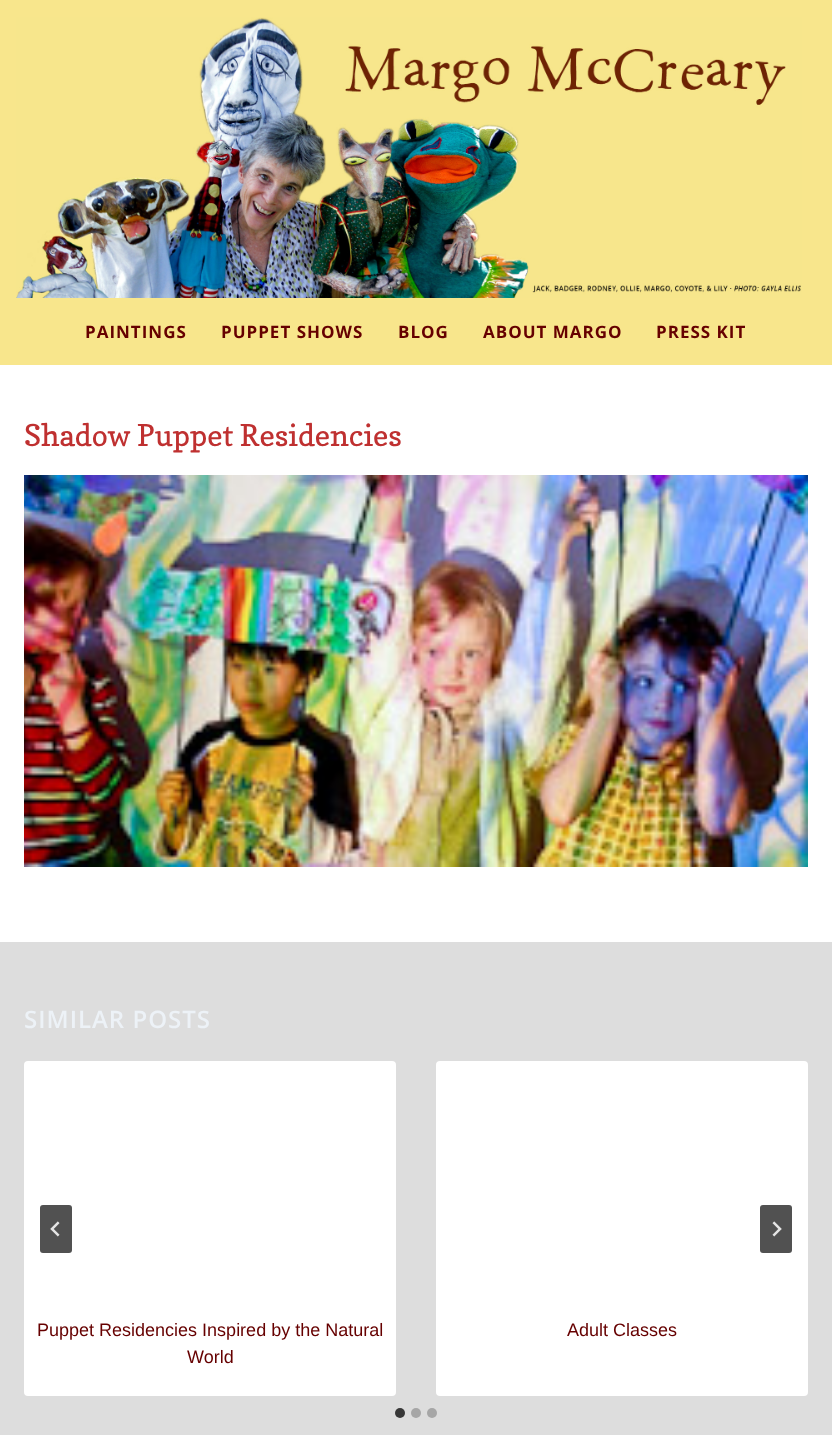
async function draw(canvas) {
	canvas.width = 832;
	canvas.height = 1435;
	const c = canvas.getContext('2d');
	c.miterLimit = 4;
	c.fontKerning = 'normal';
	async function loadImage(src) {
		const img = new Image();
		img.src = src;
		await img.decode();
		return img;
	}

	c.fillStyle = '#fff';
	c.fillRect(0, 0, 832, 1435);
	c.fillStyle = '#f8e68c';
	c.fillRect(0, 0, 832, 365);
	c.drawImage(await loadImage('img1.png'), 16, 17, 786, 281);
	c.letterSpacing = '1px';
	c.font = 'bold 17px Open Sans';
	c.fillStyle = '#600';
	for (const [text, x, y] of [
		['PAINTINGS', 85, 338],
		['PUPPET SHOWS', 221, 338],
		['BLOG', 398, 338],
		['ABOUT MARGO', 483, 338],
		['PRESS KIT', 656, 338],
	]) {
		c.fillText(text, x, y);
	}
	c.letterSpacing = '0px';
	c.font = '30px Copse';
	c.fillStyle = '#bf3030';
	c.fillText('Shadow Puppet Residencies', 24, 446);
	c.drawImage(await loadImage('img2.png'), 24, 475, 784, 392);
	c.fillStyle = '#ddd';
	c.fillRect(0, 942, 832, 493);
	c.letterSpacing = '1px';
	c.font = '600 24px Open Sans';
	c.fillStyle = '#edf2f7';
	c.fillText('SIMILAR POSTS', 24, 1028);
	c.fillStyle = '#fff';
	c.beginPath();
	c.roundRect(24, 1061, 372, 335, 4);
	c.fill();
	c.fillStyle = '#515151';
	c.beginPath();
	c.roundRect(40, 1205, 32, 48, 3);
	c.fill();
	c.drawImage(await loadImage('img3.png'), 50, 1221, 10, 16);
	c.fillStyle = '#fff';
	c.beginPath();
	c.roundRect(436, 1061, 372, 335, 4);
	c.fill();
	c.fillStyle = '#515151';
	c.beginPath();
	c.roundRect(760, 1205, 32, 48, 3);
	c.fill();
	c.drawImage(await loadImage('img4.png'), 772, 1221, 10, 16);
	c.letterSpacing = '0px';
	c.font = '18px Liberation Sans';
	c.fillStyle = '#600';
	for (const [text, x, y] of [
		['Puppet Residencies Inspired by the Natural', 37, 1336],
		['World', 187, 1363],
		['Adult Classes', 567, 1336],
	]) {
		c.fillText(text, x, y);
	}
	c.fillStyle = '#373737';
	c.beginPath();
	c.arc(400, 1413, 5, 0, 2 * Math.PI);
	c.fill();
	c.fillStyle = '#a6a6a6';
	c.beginPath();
	c.arc(416, 1413, 5, 0, 2 * Math.PI);
	c.fill();
	c.beginPath();
	c.arc(432, 1413, 5, 0, 2 * Math.PI);
	c.fill();
}

draw(document.querySelector('canvas'));
